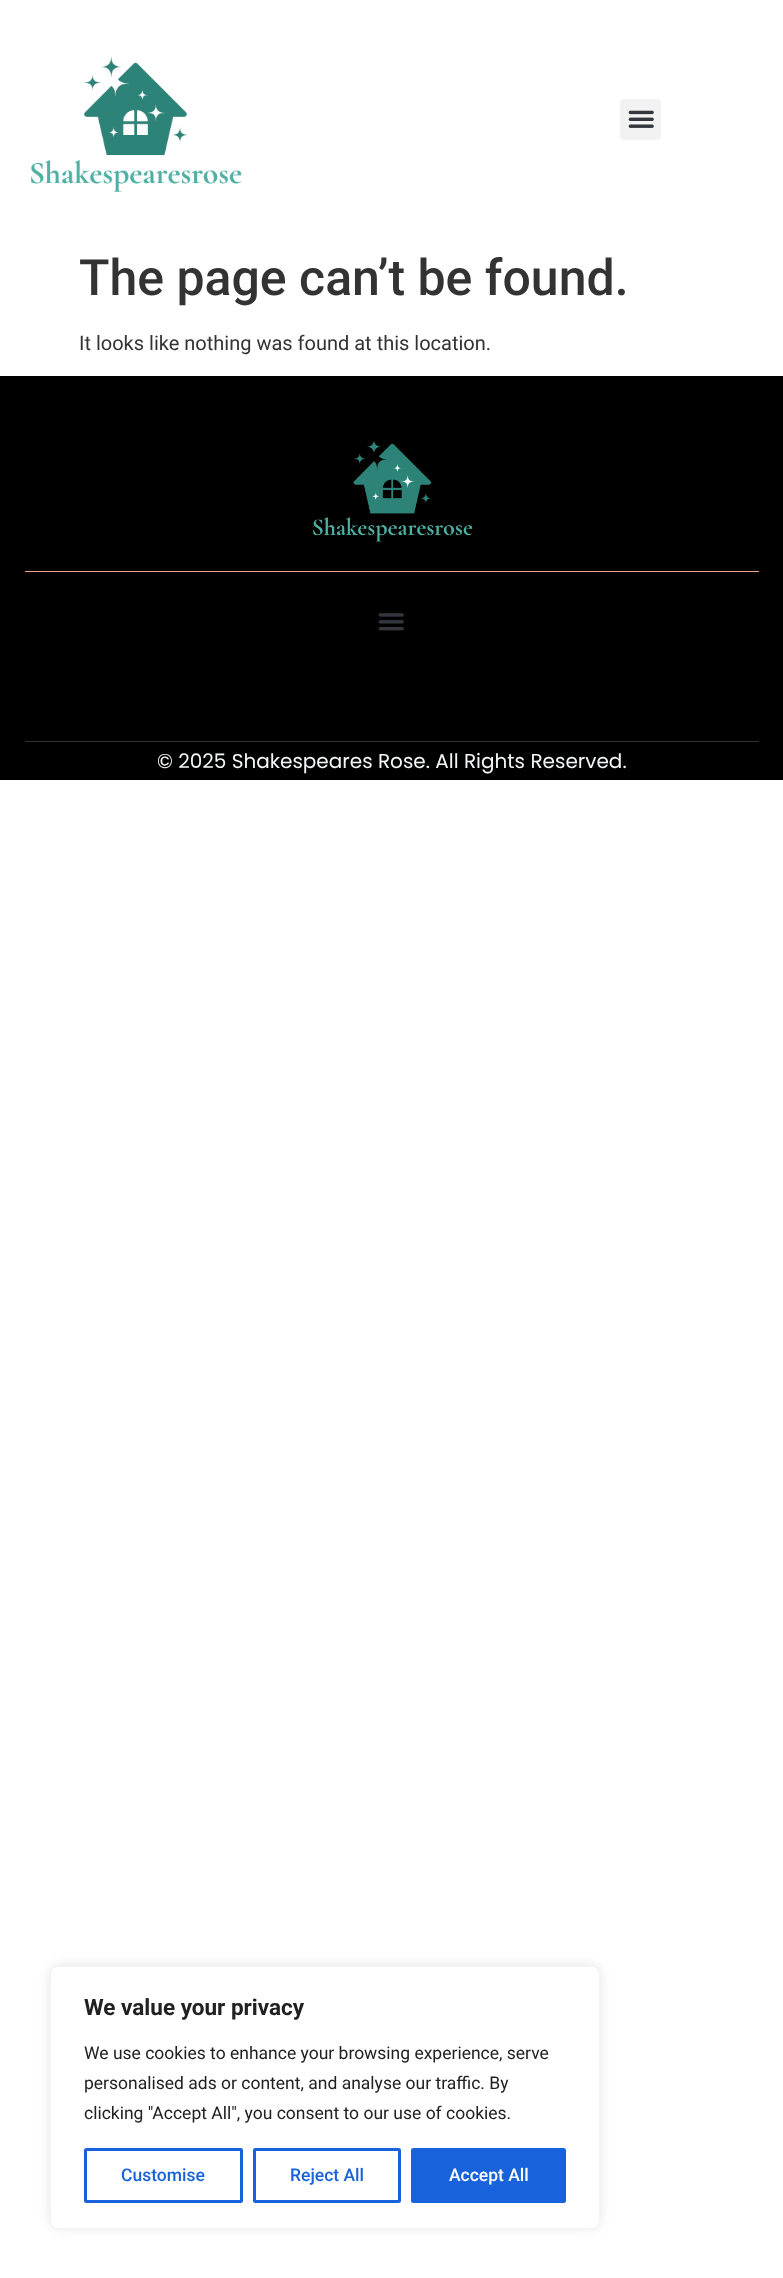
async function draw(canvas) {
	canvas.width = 783;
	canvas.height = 2278;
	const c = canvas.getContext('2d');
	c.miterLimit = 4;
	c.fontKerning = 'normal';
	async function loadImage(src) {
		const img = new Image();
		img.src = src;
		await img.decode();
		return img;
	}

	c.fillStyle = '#fff';
	c.fillRect(0, 0, 783, 2278);
	c.drawImage(await loadImage('img1.png'), 31, 56, 211, 136);
	c.fillStyle = '#f2f2f2';
	c.beginPath();
	c.roundRect(620, 99, 41, 41, 4);
	c.fill();
	c.drawImage(await loadImage('img2.png'), 628, 110, 26, 18);
	c.font = '500 50px Roboto';
	c.fillStyle = '#333';
	c.fillText('The page can’t be found.', 79, 295);
	c.font = '20px Roboto';
	c.fillText('It looks like nothing was found at this location.', 79, 350);
	c.fillStyle = '#000';
	c.fillRect(0, 376, 783, 404);
	c.drawImage(await loadImage('img3.png'), 313, 439, 159, 103);
	c.fillStyle = '#efa286';
	c.fillRect(25, 571, 734, 1);
	c.drawImage(await loadImage('img4.png'), 378, 613, 26, 18);
	c.fillStyle = '#333';
	c.fillRect(25, 741, 734, 1);
	c.font = '20px Poppins';
	c.fillStyle = '#f2f7f7';
	c.fillText('© 2025 Shakespeares Rose. All Rights Reserved.', 157, 768);
	c.fillStyle = '#acabab4d';
	c.filter = 'blur(6px)';
	c.beginPath();
	c.roundRect(50, 1965, 550, 263, 8);
	c.fill();
	c.filter = 'none';
	c.fillStyle = '#fff';
	c.beginPath();
	c.roundRect(50.5, 1966.5, 549, 262, 7.5);
	c.fill();
	c.strokeStyle = '#f4f4f4';
	c.stroke();
	c.font = 'bold 22.5px Roboto';
	c.fillStyle = '#212121';
	c.fillText('We value your privacy', 84, 2015);
	c.font = '17.5px Roboto';
	for (const [text, x, y] of [
		['We use cookies to enhance your browsing experience, serve', 84, 2059],
		['personalised ads or content, and analyse our traffic. By', 84, 2089],
		['clicking "Accept All", you consent to our use of cookies.', 84, 2119],
	]) {
		c.fillText(text, x, y);
	}
	c.beginPath();
	c.roundRect(85.5, 2149.5, 156, 52, 1);
	c.strokeStyle = '#1863dc';
	c.lineWidth = 3;
	c.stroke();
	c.font = '500 17.5px Roboto';
	c.fillStyle = '#1863dc';
	c.fillText('Customise', 121, 2181);
	c.beginPath();
	c.roundRect(254.5, 2149.5, 145, 52, 1);
	c.stroke();
	c.fillText('Reject All', 290, 2181);
	c.beginPath();
	c.roundRect(412.5, 2149.5, 152, 52, 1);
	c.fill();
	c.stroke();
	c.fillStyle = '#fff';
	c.fillText('Accept All', 449, 2181);
}

draw(document.querySelector('canvas'));
